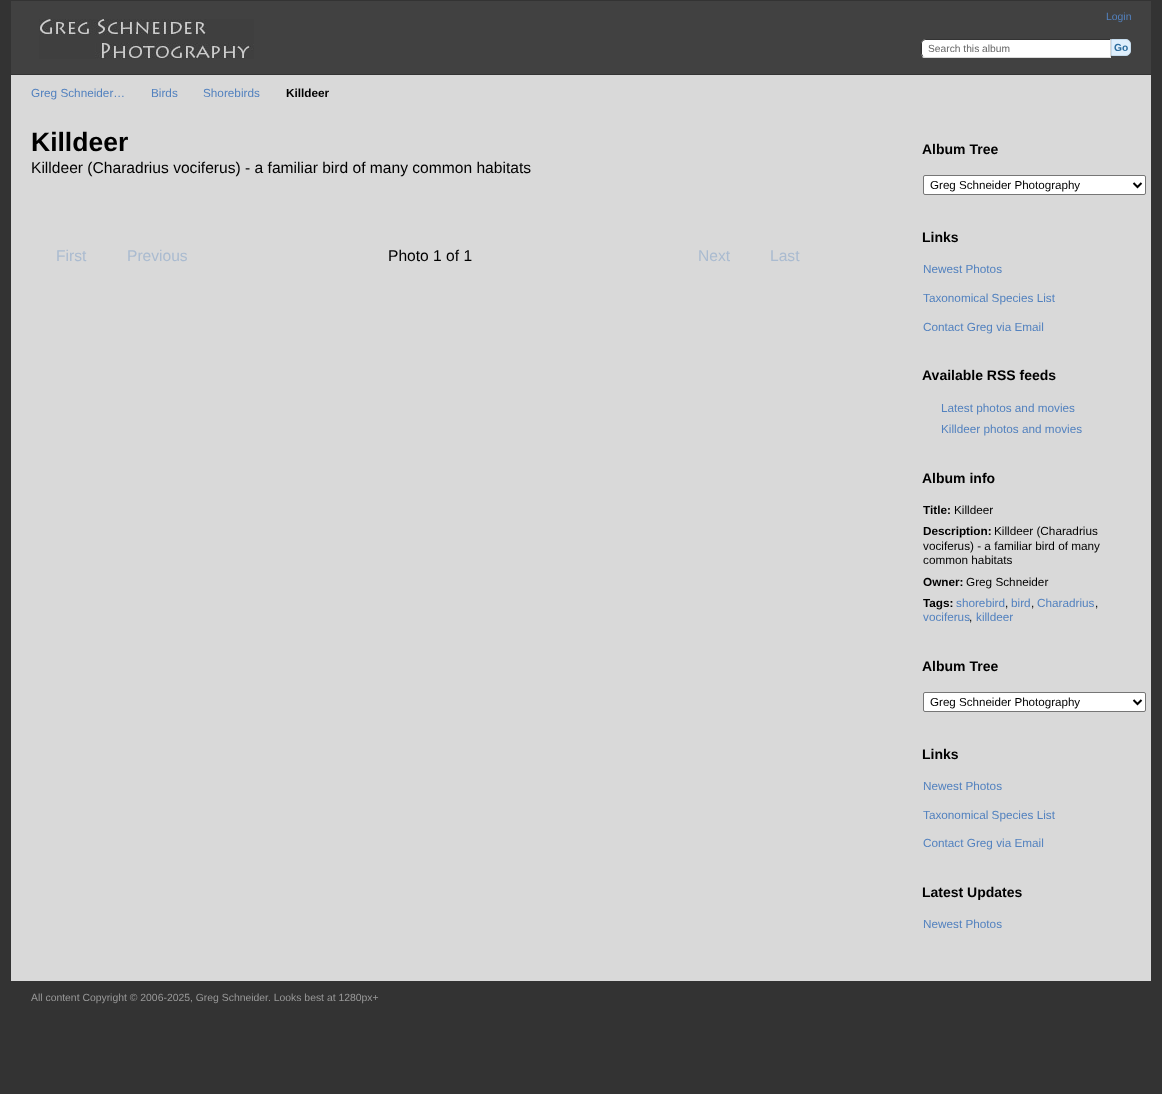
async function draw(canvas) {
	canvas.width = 1162;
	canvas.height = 1094;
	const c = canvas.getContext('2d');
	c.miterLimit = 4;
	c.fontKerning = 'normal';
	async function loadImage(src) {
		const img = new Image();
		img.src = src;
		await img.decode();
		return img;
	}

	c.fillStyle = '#333';
	c.fillRect(0, 0, 1162, 1094);
	c.fillStyle = '#d9d9d9';
	c.fillRect(11, 75, 1140, 906);
	c.fillStyle = '#414141';
	c.fillRect(11, 1, 1140, 73);
	c.font = '10.4px Liberation Sans';
	c.fillStyle = '#5382bf';
	c.fillText('Login', 1106, 20);
	c.drawImage(await loadImage('img1.png'), 39, 19, 215, 40);
	c.fillStyle = '#fff';
	c.beginPath();
	c.roundRect(921, 39, 190, 19, [5, 0, 0, 5]);
	c.fill();
	c.fillStyle = '#333';
	c.beginPath();
	c.moveTo(926, 39);
	c.bezierCurveTo(924, 39, 923, 40, 922, 40);
	c.lineTo(923, 41);
	c.bezierCurveTo(924, 40, 925, 40, 926, 40);
	c.lineTo(1110, 40);
	c.lineTo(1111, 39);
	c.closePath();
	c.fill();
	c.fillStyle = '#d9d9d9';
	c.beginPath();
	c.moveTo(1111, 39);
	c.lineTo(1110, 40);
	c.lineTo(1110, 57);
	c.lineTo(1111, 58);
	c.closePath();
	c.fill();
	c.beginPath();
	c.moveTo(1111, 58);
	c.lineTo(1110, 57);
	c.lineTo(925, 57);
	c.lineTo(923, 56);
	c.lineTo(922, 57);
	c.bezierCurveTo(923, 58, 924, 58, 926, 58);
	c.closePath();
	c.fill();
	c.fillStyle = '#333';
	c.beginPath();
	c.moveTo(921, 44);
	c.bezierCurveTo(921, 47, 920, 54.5, 922.5, 56.5);
	c.lineTo(923, 56);
	c.lineTo(922, 54);
	c.lineTo(922, 43.5);
	c.bezierCurveTo(922, 42.5, 922.5, 41.5, 923, 41);
	c.lineTo(922.5, 40.5);
	c.bezierCurveTo(921.5, 41, 921, 42.5, 921, 44);
	c.closePath();
	c.fill();
	c.font = '10.25px Liberation Sans';
	c.fillStyle = '#666';
	c.fillText('Search this album', 928, 52);
	c.fillStyle = '#dfeffc';
	c.beginPath();
	c.roundRect(1111.5, 39.5, 19, 16, [0, 4.5, 4.5, 0]);
	c.fill();
	c.strokeStyle = '#c5dbec';
	c.stroke();
	c.font = 'bold 10.25px Liberation Sans';
	c.fillStyle = '#2e6e9e';
	c.fillText('Go', 1114, 51);
	c.font = '11.75px Liberation Sans';
	c.fillStyle = '#5382bf';
	for (const [text, x, y] of [
		['Greg Schneider…', 31, 97],
		['Birds', 151, 97],
		['Shorebirds', 203, 97],
	]) {
		c.fillText(text, x, y);
	}
	c.font = 'bold 11.75px Liberation Sans';
	c.fillStyle = '#000';
	c.fillText('Killdeer', 286, 97);
	c.font = 'bold 26.5px Liberation Sans';
	c.fillText('Killdeer', 31, 151);
	c.font = '15.6px Liberation Sans';
	c.fillText('Killdeer (Charadrius vociferus) - a familiar bird of many common habitats', 31, 173);
	c.fillStyle = '#aabbd0';
	c.fillText('First', 56, 261);
	c.fillText('Previous', 127, 261);
	c.fillStyle = '#000';
	c.fillText('Photo 1 of 1', 388, 261);
	c.fillStyle = '#aabbd0';
	c.fillText('Next', 698, 261);
	c.fillText('Last', 770, 261);
	c.font = 'bold 14px Liberation Sans';
	c.fillStyle = '#000';
	c.fillText('Album Tree', 922, 154);
	c.fillStyle = '#fff';
	c.beginPath();
	c.roundRect(923.5, 175.5, 222, 19, 1.5);
	c.fill();
	c.strokeStyle = '#767676';
	c.stroke();
	c.beginPath();
	c.moveTo(1133.5, 183);
	c.lineTo(1137.5, 187);
	c.lineTo(1141.5, 183);
	c.strokeStyle = '#000';
	c.lineWidth = 2;
	c.stroke();
	c.font = '11.6px Liberation Sans';
	c.fillStyle = '#000';
	c.fillText('Greg Schneider Photography', 930, 189);
	c.font = 'bold 14px Liberation Sans';
	c.fillText('Links', 922, 242);
	c.font = '11.75px Liberation Sans';
	c.fillStyle = '#5382bf';
	for (const [text, x, y] of [
		['Newest Photos', 923, 273],
		['Taxonomical Species List', 923, 302],
		['Contact Greg via Email', 923, 331],
	]) {
		c.fillText(text, x, y);
	}
	c.font = 'bold 14px Liberation Sans';
	c.fillStyle = '#000';
	c.fillText('Available RSS feeds', 922, 380);
	c.font = '11.75px Liberation Sans';
	c.fillStyle = '#5382bf';
	c.fillText('Latest photos and movies', 941, 412);
	c.fillText('Killdeer photos and movies', 941, 433);
	c.font = 'bold 14px Liberation Sans';
	c.fillStyle = '#000';
	c.fillText('Album info', 922, 483);
	c.font = 'bold 11.75px Liberation Sans';
	c.fillText('Title:', 923, 514);
	c.font = '11.75px Liberation Sans';
	c.fillText('Killdeer', 954, 514);
	c.font = 'bold 11.75px Liberation Sans';
	c.fillText('Description:', 923, 535);
	c.font = '11.75px Liberation Sans';
	for (const [text, x, y] of [
		['Killdeer (Charadrius', 994, 535],
		['vociferus) - a familiar bird of many', 923, 550],
		['common habitats', 923, 564],
	]) {
		c.fillText(text, x, y);
	}
	c.font = 'bold 11.75px Liberation Sans';
	c.fillText('Owner:', 923, 586);
	c.font = '11.75px Liberation Sans';
	c.fillText('Greg Schneider', 966, 586);
	c.font = 'bold 11.75px Liberation Sans';
	c.fillText('Tags:', 923, 607);
	c.font = '11.75px Liberation Sans';
	c.fillStyle = '#5382bf';
	c.fillText('shorebird', 956, 607);
	c.fillStyle = '#000';
	c.fillText(',', 1005, 607);
	c.fillStyle = '#5382bf';
	c.fillText('bird', 1011, 607);
	c.fillStyle = '#000';
	c.fillText(',', 1031, 607);
	c.fillStyle = '#5382bf';
	c.fillText('Charadrius', 1037, 607);
	c.fillStyle = '#000';
	c.fillText(',', 1095, 607);
	c.fillStyle = '#5382bf';
	c.fillText('vociferus', 923, 621);
	c.fillStyle = '#000';
	c.fillText(',', 969, 621);
	c.fillStyle = '#5382bf';
	c.fillText('killdeer', 976, 621);
	c.font = 'bold 14px Liberation Sans';
	c.fillStyle = '#000';
	c.fillText('Album Tree', 922, 671);
	c.fillStyle = '#fff';
	c.beginPath();
	c.roundRect(923.5, 692.5, 222, 19, 1.5);
	c.fill();
	c.strokeStyle = '#767676';
	c.lineWidth = 1;
	c.stroke();
	c.beginPath();
	c.moveTo(1133.5, 700);
	c.lineTo(1137.5, 704);
	c.lineTo(1141.5, 700);
	c.strokeStyle = '#000';
	c.lineWidth = 2;
	c.stroke();
	c.font = '11.6px Liberation Sans';
	c.fillStyle = '#000';
	c.fillText('Greg Schneider Photography', 930, 706);
	c.font = 'bold 14px Liberation Sans';
	c.fillText('Links', 922, 759);
	c.font = '11.75px Liberation Sans';
	c.fillStyle = '#5382bf';
	for (const [text, x, y] of [
		['Newest Photos', 923, 790],
		['Taxonomical Species List', 923, 819],
		['Contact Greg via Email', 923, 847],
	]) {
		c.fillText(text, x, y);
	}
	c.font = 'bold 14px Liberation Sans';
	c.fillStyle = '#000';
	c.fillText('Latest Updates', 922, 897);
	c.font = '11.75px Liberation Sans';
	c.fillStyle = '#5382bf';
	c.fillText('Newest Photos', 923, 928);
	c.font = '10.4px Liberation Sans';
	c.fillStyle = '#999';
	c.fillText('All content Copyright © 2006-2025, Greg Schneider. Looks best at 1280px+', 31, 1001);
}

draw(document.querySelector('canvas'));
